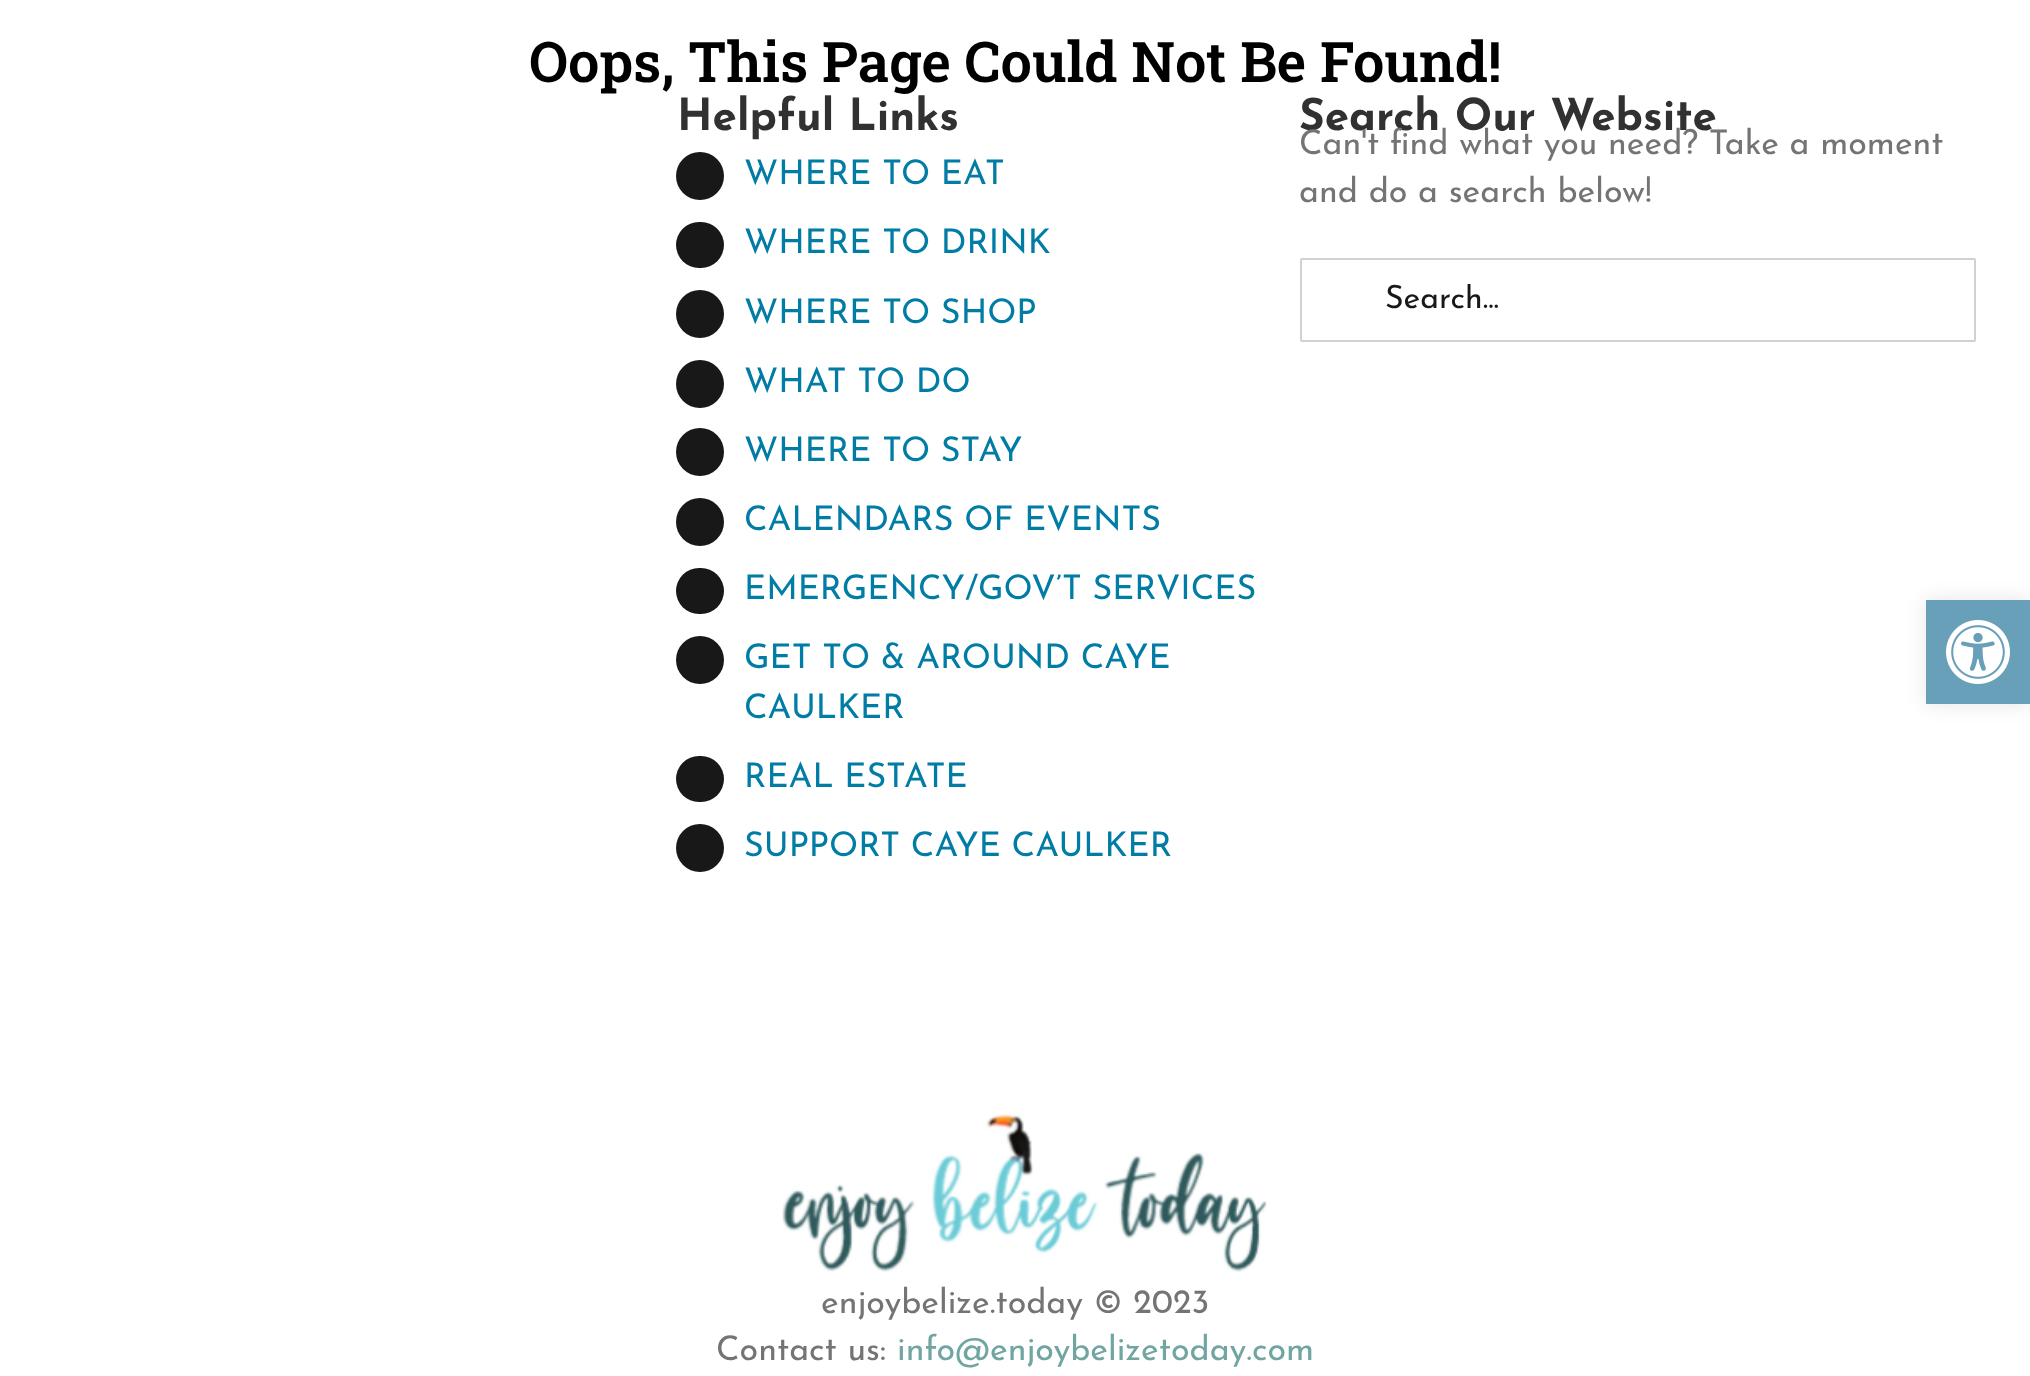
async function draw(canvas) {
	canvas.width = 2030;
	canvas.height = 1376;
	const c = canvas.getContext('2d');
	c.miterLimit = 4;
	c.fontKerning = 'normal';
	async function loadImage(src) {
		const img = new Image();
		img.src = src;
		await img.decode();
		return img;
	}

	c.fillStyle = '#fff';
	c.fillRect(0, 0, 2030, 1376);
	c.font = '600 56px Roboto Slab';
	c.fillStyle = '#000';
	c.fillText('Oops, This Page Could Not Be Found!', 529, 82);
	c.font = 'bold 44px Josefin Sans';
	c.fillStyle = '#313131';
	c.fillText('Helpful Links', 677, 130);
	c.fillStyle = '#181818';
	c.beginPath();
	c.arc(700, 176, 24, 0, 2 * Math.PI);
	c.fill();
	c.font = '34px Josefin Sans';
	c.fillStyle = '#017ca5';
	c.fillText('WHERE TO EAT', 744, 184);
	c.fillStyle = '#181818';
	c.beginPath();
	c.roundRect(676, 222, 48, 46, 23);
	c.fill();
	c.fillStyle = '#017ca5';
	c.fillText('WHERE TO DRINK', 744, 253);
	c.fillStyle = '#181818';
	c.beginPath();
	c.arc(700, 314, 24, 0, 2 * Math.PI);
	c.fill();
	c.fillStyle = '#017ca5';
	c.fillText('WHERE TO SHOP', 744, 323);
	c.fillStyle = '#181818';
	c.beginPath();
	c.arc(700, 384, 24, 0, 2 * Math.PI);
	c.fill();
	c.fillStyle = '#017ca5';
	c.fillText('WHAT TO DO', 744, 392);
	c.fillStyle = '#181818';
	c.beginPath();
	c.arc(700, 452, 24, 0, 2 * Math.PI);
	c.fill();
	c.fillStyle = '#017ca5';
	c.fillText('WHERE TO STAY', 744, 461);
	c.fillStyle = '#181818';
	c.beginPath();
	c.arc(700, 522, 24, 0, 2 * Math.PI);
	c.fill();
	c.fillStyle = '#017ca5';
	c.fillText('CALENDARS OF EVENTS', 744, 530);
	c.fillStyle = '#181818';
	c.beginPath();
	c.roundRect(676, 568, 48, 46, 23);
	c.fill();
	c.fillStyle = '#017ca5';
	c.fillText('EMERGENCY/GOV’T SERVICES', 744, 599);
	c.fillStyle = '#181818';
	c.beginPath();
	c.arc(700, 660, 24, 0, 2 * Math.PI);
	c.fill();
	c.fillStyle = '#017ca5';
	c.fillText('GET TO & AROUND CAYE', 744, 668);
	c.fillText('CAULKER', 744, 718);
	c.fillStyle = '#181818';
	c.beginPath();
	c.roundRect(676, 756, 48, 46, 23);
	c.fill();
	c.fillStyle = '#017ca5';
	c.fillText('REAL ESTATE', 744, 787);
	c.fillStyle = '#181818';
	c.beginPath();
	c.arc(700, 848, 24, 0, 2 * Math.PI);
	c.fill();
	c.fillStyle = '#017ca5';
	c.fillText('SUPPORT CAYE CAULKER', 744, 856);
	c.font = 'bold 44px Josefin Sans';
	c.fillStyle = '#313131';
	c.fillText('Search Our Website', 1299, 130);
	c.font = '34px Josefin Sans';
	c.fillStyle = '#747474';
	c.fillText('Can\'t find what you need? Take a moment', 1299, 154);
	c.fillText('and do a search below!', 1299, 202);
	c.beginPath();
	c.roundRect(1301, 259, 674, 82, 1);
	c.strokeStyle = '#d1d1d1';
	c.lineWidth = 2;
	c.stroke();
	c.save();
	c.beginPath();
	c.rect(1386, 284, 528, 32);
	c.clip();
	c.font = '32px Josefin Sans';
	c.fillStyle = '#181818';
	c.fillText('Search...', 1385, 308);
	c.restore();
	c.drawImage(await loadImage('img1.png'), 782, 1114, 485, 158);
	c.fillText('enjoybelize.today © 2023', 821, 1313);
	c.fillText('Contact us:', 716, 1360);
	c.fillStyle = '#71a5a1';
	c.fillText('info@enjoybelizetoday.com', 897, 1360);
	c.fillStyle = '#0000001a';
	c.filter = 'blur(10px)';
	c.beginPath();
	c.rect(1926, 600, 104, 104);
	c.fill();
	c.filter = 'none';
	c.fillStyle = '#69a0b9';
	c.fillRect(1926, 600, 104, 104);
	c.drawImage(await loadImage('img2.png'), 1946, 620, 64, 64);
}

draw(document.querySelector('canvas'));
